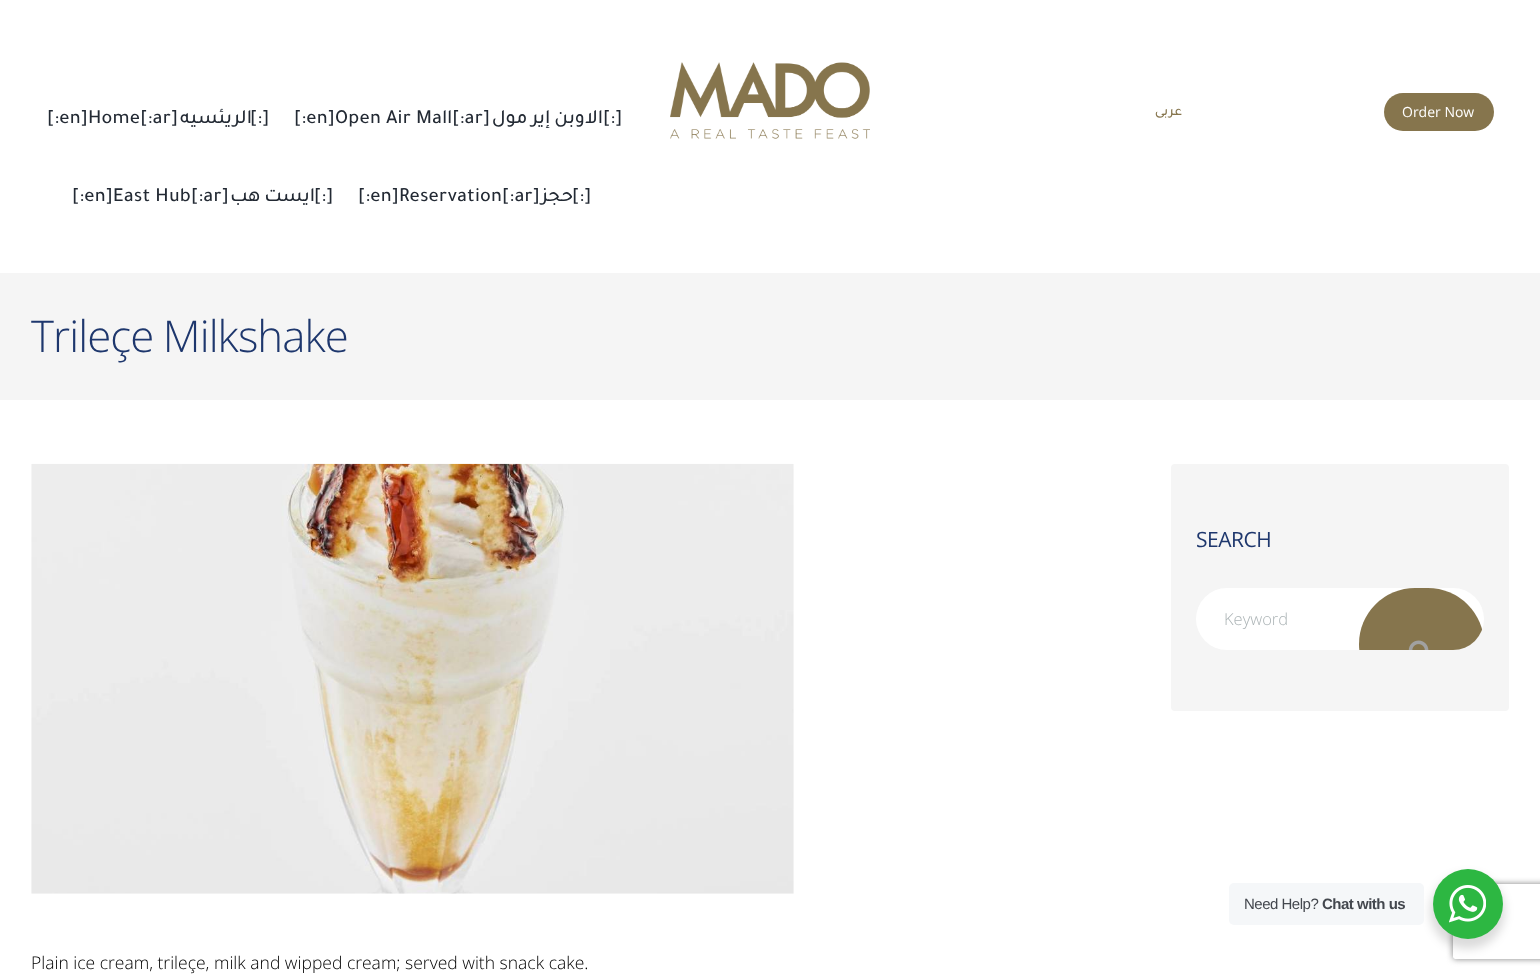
async function draw(canvas) {
	canvas.width = 1540;
	canvas.height = 976;
	const c = canvas.getContext('2d');
	c.miterLimit = 4;
	c.fontKerning = 'normal';
	async function loadImage(src) {
		const img = new Image();
		img.src = src;
		await img.decode();
		return img;
	}

	c.fillStyle = '#fff';
	c.fillRect(0, 0, 1540, 976);
	c.letterSpacing = '0.2px';
	c.font = '500 20px Tajawal';
	c.fillStyle = '#232a34';
	c.fillText('[:en]Home[:ar]', 47, 123);
	c.direction = 'rtl';
	c.fillText('الريئسيه', 252, 123);
	c.direction = 'ltr';
	c.fillText('[:]', 250, 123);
	c.fillText('[:en]Open Air Mall[:ar]', 294, 123);
	c.wordSpacing = '-1px';
	c.direction = 'rtl';
	c.fillText('الاوبن إير مول', 603, 123);
	c.wordSpacing = '0px';
	c.direction = 'ltr';
	c.fillText('[:]', 603, 123);
	c.fillText('[:en]East Hub[:ar]', 72, 201);
	c.wordSpacing = '-1px';
	c.direction = 'rtl';
	c.fillText('ايست هب', 315, 201);
	c.wordSpacing = '0px';
	c.direction = 'ltr';
	c.fillText('[:]', 314, 201);
	c.fillText('[:en]Reservation[:ar]', 358, 201);
	c.direction = 'rtl';
	c.fillText('حجز', 573, 201);
	c.direction = 'ltr';
	c.fillText('[:]', 572, 201);
	c.drawImage(await loadImage('img1.png'), 670, 62, 200, 77);
	c.letterSpacing = '0px';
	c.direction = 'rtl';
	c.font = '500 14px Tajawal';
	c.fillStyle = '#86754d';
	c.fillText('عربى', 1182, 115);
	c.beginPath();
	c.roundRect(1384, 93, 110, 38, 19);
	c.fill();
	c.direction = 'ltr';
	c.font = '14px Open Sans';
	c.fillStyle = '#fff';
	c.fillText('Order Now', 1402, 117);
	c.fillStyle = '#f5f5f5';
	c.fillRect(0, 273, 1540, 127);
	c.letterSpacing = '-0.9px';
	c.wordSpacing = '-1px';
	c.font = '300 43.75px Open Sans';
	c.fillStyle = '#1e376d';
	c.fillText('Trileçe Milkshake', 31, 352);
	c.fillStyle = '#f5f5f5';
	c.beginPath();
	c.roundRect(1171, 464, 338, 247, 4);
	c.fill();
	c.letterSpacing = '-0.5px';
	c.wordSpacing = '0px';
	c.font = '21px Open Sans';
	c.fillStyle = '#1e376d';
	c.fillText('SEARCH', 1196, 547);
	c.fillStyle = '#fff';
	c.beginPath();
	c.roundRect(1196, 588, 288, 62, 31);
	c.fill();
	c.letterSpacing = '0px';
	c.font = '300 16.5px Open Sans';
	c.fillStyle = '#acb4b6';
	c.fillText('Keyword', 1224, 625);
	c.save();
	c.beginPath();
	c.roundRect(1196, 588, 288, 62, 31);
	c.clip();
	c.fillStyle = '#86754d';
	c.beginPath();
	c.roundRect(1359, 588, 125, 112, 56);
	c.fill();
	c.restore();
	c.drawImage(await loadImage('img2.png'), 1408, 640, 21, 10);
	c.drawImage(await loadImage('img3.png'), 31, 463, 763, 431);
	c.font = '300 17.5px Open Sans';
	c.fillStyle = '#000';
	c.fillText('Plain ice cream, trileçe, milk and wipped cream; served with snack cake.', 31, 969);
	c.save();
	c.beginPath();
	c.moveTo(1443, 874);
	c.lineTo(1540, 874);
	c.lineTo(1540, 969);
	c.lineTo(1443, 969);
	c.closePath();
	c.moveTo(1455.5, 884);
	c.lineTo(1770.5, 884);
	c.bezierCurveTo(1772, 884, 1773, 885, 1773, 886.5);
	c.lineTo(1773, 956.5);
	c.bezierCurveTo(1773, 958, 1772, 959, 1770.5, 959);
	c.lineTo(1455.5, 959);
	c.bezierCurveTo(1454, 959, 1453, 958, 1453, 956.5);
	c.lineTo(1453, 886.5);
	c.bezierCurveTo(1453, 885, 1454, 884, 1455.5, 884);
	c.closePath();
	c.clip('evenodd');
	c.fillStyle = '#808080';
	c.filter = 'blur(3px)';
	c.beginPath();
	c.roundRect(1453, 884, 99, 75, 2.5);
	c.fill();
	c.filter = 'none';
	c.restore();
	c.fillStyle = '#00000024';
	c.filter = 'blur(5px)';
	c.beginPath();
	c.roundRect(1430, 874, 75, 75, 37.5);
	c.fill();
	c.filter = 'none';
	c.fillStyle = '#f5f7f9';
	c.beginPath();
	c.roundRect(1229, 883, 195, 42, 5);
	c.fill();
	c.letterSpacing = '-0.5px';
	c.font = '15px Liberation Sans';
	c.fillStyle = '#43474e';
	c.fillText('Need Help?', 1244, 909);
	c.font = 'bold 15px Liberation Sans';
	c.fillText('Chat with us', 1322, 909);
	c.fillStyle = '#2db742';
	c.beginPath();
	c.arc(1468, 904, 35, 0, 2 * Math.PI);
	c.fill();
	c.drawImage(await loadImage('img4.png'), 1449, 885, 37, 38);
}

draw(document.querySelector('canvas'));
